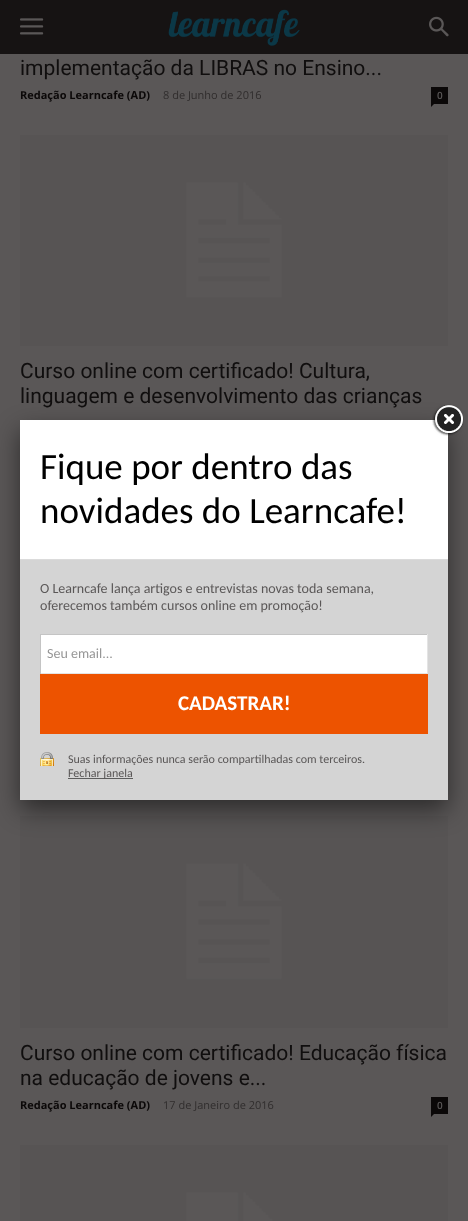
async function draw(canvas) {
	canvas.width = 468;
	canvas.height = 1221;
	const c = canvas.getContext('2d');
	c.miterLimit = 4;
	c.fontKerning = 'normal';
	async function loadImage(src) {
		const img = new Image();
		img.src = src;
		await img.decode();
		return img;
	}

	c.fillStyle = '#5a5757';
	c.fillRect(0, 0, 468, 1221);
	c.fillStyle = '#161313';
	c.fillRect(0, 0, 468, 54);
	c.drawImage(await loadImage('img1.png'), 20, 18, 24, 17);
	c.drawImage(await loadImage('img2.png'), 168, 9, 132, 37);
	c.drawImage(await loadImage('img3.png'), 429, 16, 20, 21);
	c.font = '21px Roboto';
	c.fillStyle = '#100e0e';
	c.fillText('implementação da LIBRAS no Ensino...', 20, 75);
	c.font = 'bold 11px Open Sans';
	c.fillStyle = '#0b0808';
	c.fillText('Redação Learncafe (AD)', 20, 99);
	c.font = '11px Open Sans';
	c.fillStyle = '#302d2d';
	c.fillText('8 de Junho de 2016', 163, 99);
	c.fillStyle = '#0b0808';
	c.fillRect(431, 87, 17, 17);
	c.font = '600 10px Open Sans';
	c.fillStyle = '#5a5757';
	c.fillText('0', 437, 99);
	c.fillStyle = '#0b0808';
	c.beginPath();
	c.moveTo(431, 104);
	c.lineTo(434, 104);
	c.lineTo(431, 107);
	c.closePath();
	c.fill();
	c.drawImage(await loadImage('img4.png'), 20, 135, 428, 211);
	c.font = '21px Roboto';
	c.fillStyle = '#100e0e';
	c.fillText('Curso online com certificado! Cultura,', 20, 378);
	c.fillText('linguagem e desenvolvimento das crianças', 20, 403);
	c.drawImage(await loadImage('img5.png'), 20, 816, 428, 212);
	c.fillText('Curso online com certificado! Educação física', 20, 1060);
	c.fillText('na educação de jovens e...', 20, 1085);
	c.font = 'bold 11px Open Sans';
	c.fillStyle = '#0b0808';
	c.fillText('Redação Learncafe (AD)', 20, 1109);
	c.font = '11px Open Sans';
	c.fillStyle = '#302d2d';
	c.fillText('17 de Janeiro de 2016', 163, 1109);
	c.fillStyle = '#0b0808';
	c.fillRect(431, 1097, 17, 17);
	c.font = '600 10px Open Sans';
	c.fillStyle = '#5a5757';
	c.fillText('0', 437, 1109);
	c.fillStyle = '#0b0808';
	c.beginPath();
	c.moveTo(431, 1114);
	c.lineTo(434, 1114);
	c.lineTo(431, 1117);
	c.closePath();
	c.fill();
	c.drawImage(await loadImage('img6.png'), 20, 1145, 428, 76);
	c.fillStyle = '#00000080';
	c.filter = 'blur(12.5px)';
	c.beginPath();
	c.roundRect(20, 430, 428, 380, 4);
	c.fill();
	c.filter = 'none';
	c.fillStyle = '#fff';
	c.fillRect(20, 420, 428, 139);
	c.drawImage(await loadImage('img7.png'), 432, 404, 32, 32);
	c.fillStyle = '#dbdbdb';
	c.fillRect(20, 559, 428, 1);
	c.font = '37px Carlito';
	c.fillStyle = '#000';
	c.fillText('Fique por dentro das', 40, 479);
	c.fillText('novidades do Learncafe!', 40, 523);
	c.fillStyle = '#d4d4d4';
	c.fillRect(20, 560, 428, 240);
	c.font = '14px Carlito';
	c.fillStyle = '#5a5757';
	c.fillText('O Learncafe lança artigos e entrevistas novas toda semana,', 40, 593);
	c.fillText('oferecemos também cursos online em promoção!', 40, 610);
	for (const [x, y, w, h, color] of [
		[41, 635, 386, 38, '#fff'],
		[40, 634, 388, 1, '#c4c4c4'],
		[427, 634, 1, 40, '#e4e4e4'],
		[40, 673, 388, 1, '#e4e4e4'],
		[40, 634, 1, 40, '#c4c4c4'],
	]) {
		c.fillStyle = color;
		c.fillRect(x, y, w, h);
	}
	c.fillStyle = '#969696';
	c.fillText('Seu email...', 47, 658);
	c.fillStyle = '#ed5300';
	c.fillRect(40, 674, 388, 60);
	c.font = 'bold 21px Carlito';
	c.fillStyle = '#fff';
	c.fillText('CADASTRAR!', 178, 710);
	c.drawImage(await loadImage('img8.png'), 40, 752, 14, 14);
	c.font = '12px Carlito';
	c.fillStyle = '#5a5757';
	c.fillText('Suas informações nunca serão compartilhadas com terceiros.', 68, 763);
	c.fillStyle = '#5c5c5c';
	c.fillRect(68, 778, 65, 1);
	c.fillStyle = '#5a5757';
	c.fillText('Fechar janela', 68, 777);
}

draw(document.querySelector('canvas'));
